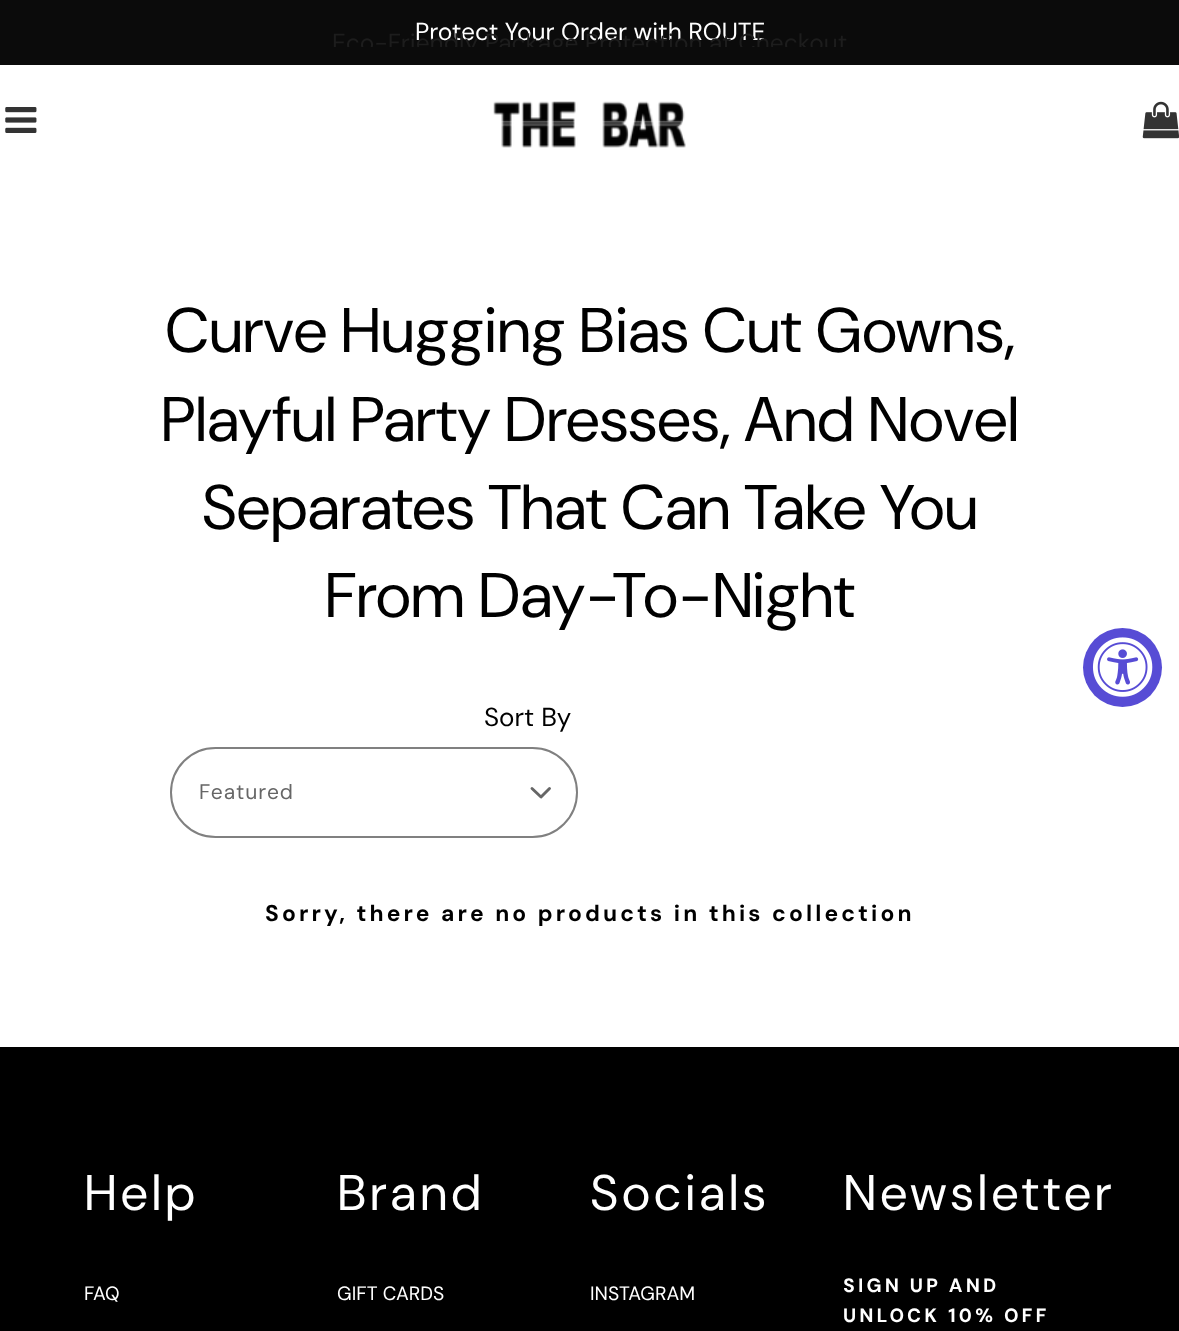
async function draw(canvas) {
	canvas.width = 1179;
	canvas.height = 1331;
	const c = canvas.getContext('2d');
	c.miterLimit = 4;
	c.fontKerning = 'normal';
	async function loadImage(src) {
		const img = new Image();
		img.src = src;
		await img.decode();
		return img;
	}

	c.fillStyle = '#fff';
	c.fillRect(0, 0, 1179, 1331);
	c.fillStyle = '#0b0b0b';
	c.fillRect(0, 0, 1179, 65);
	c.font = '24.5px "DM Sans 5"';
	c.fillStyle = '#fff';
	c.fillText('Protect Your Order with ROUTE', 415, 40);
	c.save();
	c.beginPath();
	c.rect(0, 18, 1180, 29);
	c.clip();
	c.fillStyle = '#1d1d1d';
	c.fillText('Eco-Friendly Package Protection at Checkout', 332, 51);
	c.restore();
	c.drawImage(await loadImage('img1.png'), 5, 107, 32, 26);
	c.drawImage(await loadImage('img2.png'), 493, 101, 193, 47);
	c.drawImage(await loadImage('img3.png'), 1142, 101, 37, 38);
	c.font = '63px DM Sans';
	c.fillStyle = '#000';
	for (const [text, x, y] of [
		['Curve Hugging Bias Cut Gowns,', 165, 352],
		['Playful Party Dresses, And Novel', 161, 441],
		['Separates That Can Take You', 202, 529],
		['From Day-To-Night', 325, 617],
	]) {
		c.fillText(text, x, y);
	}
	c.font = '26px "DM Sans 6"';
	c.fillText('Sort By', 484, 726);
	c.beginPath();
	c.roundRect(171, 748, 406, 89, 44.5);
	c.strokeStyle = '#808080';
	c.lineWidth = 2;
	c.stroke();
	c.letterSpacing = '1px';
	c.font = '21px "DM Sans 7"';
	c.fillStyle = '#666';
	c.fillText('Featured', 199, 799);
	c.beginPath();
	c.moveTo(532, 788.5);
	c.lineTo(541, 797);
	c.lineTo(549.5, 788.5);
	c.strokeStyle = '#666';
	c.lineWidth = 2.9;
	c.lineCap = 'round';
	c.lineJoin = 'round';
	c.stroke();
	c.letterSpacing = '3.1px';
	c.font = 'bold 22.75px DM Sans';
	c.fillStyle = '#000';
	c.fillText('Sorry, there are no products in this collection', 265, 921);
	c.fillStyle = '#574cd5';
	c.beginPath();
	c.arc(1122.5, 667.5, 39.5, 0, 2 * Math.PI);
	c.fill();
	c.drawImage(await loadImage('img4.png'), 1092, 637, 61, 60);
	c.fillStyle = '#000';
	c.fillRect(0, 1047, 1179, 284);
	c.font = '50px "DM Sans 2"';
	c.fillStyle = '#fff';
	c.fillText('Help', 84, 1210);
	c.letterSpacing = '0px';
	c.font = '19.25px "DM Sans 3"';
	c.fillText('FAQ', 84, 1300);
	c.letterSpacing = '3.1px';
	c.font = '50px "DM Sans 2"';
	c.fillText('Brand', 337, 1210);
	c.letterSpacing = '0px';
	c.font = '19.25px "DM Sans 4"';
	c.fillText('GIFT CARDS', 337, 1300);
	c.letterSpacing = '3.1px';
	c.font = '50px "DM Sans 2"';
	c.fillText('Socials', 590, 1210);
	c.letterSpacing = '0px';
	c.font = '19.25px "DM Sans 4"';
	c.fillText('INSTAGRAM', 590, 1300);
	c.letterSpacing = '3.1px';
	c.font = '50px "DM Sans 2"';
	c.fillText('Newsletter', 843, 1210);
	c.font = 'bold 19.25px "DM Sans 2"';
	c.fillText('SIGN UP AND', 843, 1292);
	c.fillText('UNLOCK 10% OFF', 843, 1322);
}

draw(document.querySelector('canvas'));
